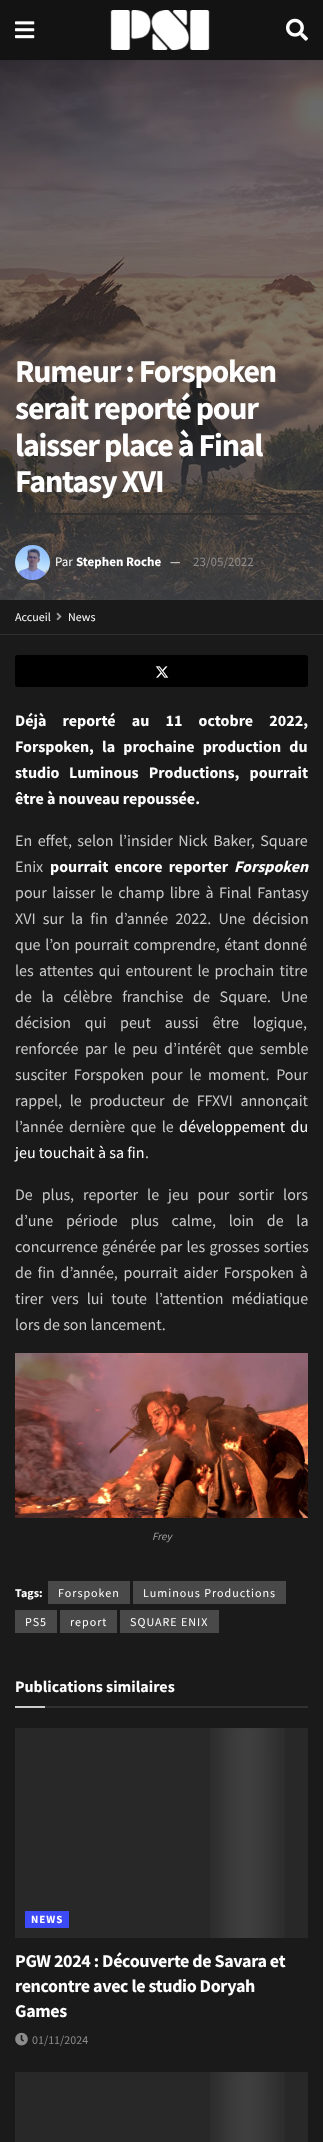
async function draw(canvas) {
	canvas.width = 323;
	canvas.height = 2142;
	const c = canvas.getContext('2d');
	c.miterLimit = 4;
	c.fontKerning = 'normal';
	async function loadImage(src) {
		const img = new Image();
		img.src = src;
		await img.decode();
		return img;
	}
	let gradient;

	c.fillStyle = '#1a1a1a';
	c.fillRect(0, 0, 323, 2142);
	c.fillStyle = '#131313';
	c.fillRect(0, 0, 323, 60);
	c.drawImage(await loadImage('img1.png'), 15, 21, 20, 18);
	c.drawImage(await loadImage('img2.png'), 110, 10, 100, 40);
	c.drawImage(await loadImage('img3.png'), 286, 18, 22, 23);
	gradient = c.createLinearGradient(161, 60, 162, 600);
	gradient.addColorStop(0, '#000');
	gradient.addColorStop(1, '#545454');
	c.fillStyle = gradient;
	c.fillRect(0, 60, 323, 540);
	c.drawImage(await loadImage('img4.png'), 0, 60, 323, 540);
	c.letterSpacing = '-1.25px';
	c.font = 'bold 32px Source Sans Pro';
	c.fillStyle = '#fff';
	for (const [text, x, y] of [
		['Rumeur : Forspoken', 15, 382],
		['serait reporté pour', 15, 419],
		['laisser place à Final', 15, 456],
		['Fantasy XVI', 15, 492],
	]) {
		c.fillText(text, x, y);
	}
	c.fillStyle = '#303030';
	c.fillRect(15, 513, 293, 2);
	c.drawImage(await loadImage('img5.png'), 15, 545, 35, 35);
	c.letterSpacing = '0px';
	c.font = '13px Source Sans Pro';
	c.fillStyle = '#fff';
	c.fillText('Par', 55, 566);
	c.font = 'bold 13px Source Sans Pro';
	c.fillText('Stephen Roche', 76, 566);
	c.font = '13px Source Sans Pro';
	c.fillText('—', 170, 566);
	c.fillStyle = '#8b8b8b';
	c.fillText('23/05/2022', 193, 566);
	c.fillStyle = '#303030';
	c.fillRect(0, 634, 323, 1);
	c.font = '12px Source Sans Pro';
	c.fillStyle = '#fff';
	c.fillText('Accueil', 15, 621);
	c.drawImage(await loadImage('img6.png'), 56, 612, 6, 9);
	c.fillText('News', 68, 621);
	c.fillStyle = '#000';
	c.beginPath();
	c.roundRect(15, 655, 293, 32, 3);
	c.fill();
	c.drawImage(await loadImage('img7.png'), 155, 666, 14, 12);
	c.wordSpacing = '13px';
	c.font = 'bold 16px Source Sans Pro';
	c.fillStyle = '#fff';
	c.fillText('Déjà reporté au 11 octobre 2022,', 15, 726);
	c.wordSpacing = '5px';
	c.fillText('Forspoken, la prochaine production du', 15, 752);
	c.wordSpacing = '0px';
	c.fillText('studio', 15, 778);
	c.wordSpacing = '7px';
	c.fillText('Luminous Productions, pourrait', 69, 778);
	c.wordSpacing = '0px';
	c.fillText('être à nouveau repoussée.', 15, 804);
	c.wordSpacing = '2.25px';
	c.font = '16px Source Sans Pro';
	c.fillStyle = '#cacaca';
	c.fillText('En effet, selon l’insider Nick Baker, Square', 15, 846);
	c.wordSpacing = '0px';
	c.fillText('Enix', 15, 872);
	c.wordSpacing = '3px';
	c.font = 'bold 16px Source Sans Pro';
	c.fillStyle = '#fff';
	c.fillText('pourrait encore reporter', 50, 872);
	c.wordSpacing = '0px';
	c.font = 'italic bold 16px Source Sans Pro';
	c.fillText('Forspoken', 234, 872);
	c.wordSpacing = '2.25px';
	c.font = '16px Source Sans Pro';
	c.fillStyle = '#cacaca';
	c.fillText('pour laisser le champ libre à Final Fantasy', 15, 898);
	c.wordSpacing = '4px';
	c.fillText('XVI sur la fin d’année 2022. Une décision', 15, 924);
	c.wordSpacing = '1.5px';
	c.fillText('que l’on pourrait comprendre, étant donné', 15, 950);
	c.wordSpacing = '2px';
	c.fillText('les attentes qui entourent le prochain titre', 15, 976);
	c.wordSpacing = '6.5px';
	c.fillText('de la célèbre franchise de Square. Une', 15, 1002);
	c.wordSpacing = '10.5px';
	c.fillText('décision qui peut aussi être logique,', 15, 1028);
	c.wordSpacing = '3.25px';
	c.fillText('renforcée par le peu d’intérêt que semble', 15, 1054);
	c.wordSpacing = '3.5px';
	c.fillText('susciter Forspoken pour le moment. Pour', 15, 1080);
	c.wordSpacing = '4.5px';
	c.fillText('rappel, le producteur de FFXVI annonçait', 15, 1106);
	c.wordSpacing = '2.25px';
	c.fillText('l’année dernière que le', 15, 1132);
	c.fillStyle = '#fff';
	c.fillText('développement du', 179, 1132);
	c.wordSpacing = '0px';
	c.fillText('jeu touchait à sa fin', 15, 1158);
	c.fillStyle = '#cacaca';
	c.fillText('.', 145, 1158);
	c.wordSpacing = '5.75px';
	c.fillText('De plus, reporter le jeu pour sortir lors', 15, 1200);
	c.wordSpacing = '9.5px';
	c.fillText('d’une période plus calme, loin de la', 15, 1226);
	c.wordSpacing = '1px';
	c.fillText('concurrence générée par les grosses sorties', 15, 1252);
	c.wordSpacing = '2.5px';
	c.fillText('de fin d’année, pourrait aider Forspoken à', 15, 1278);
	c.wordSpacing = '4.75px';
	c.fillText('tirer vers lui toute l’attention médiatique', 15, 1304);
	c.wordSpacing = '0px';
	c.fillText('lors de son lancement.', 15, 1330);
	c.drawImage(await loadImage('img8.png'), 15, 1353, 293, 165);
	c.font = 'italic 11px Source Sans Pro';
	c.fillStyle = '#a0a0a0';
	c.fillText('Frey', 152, 1540);
	c.font = 'bold 12px Source Sans Pro';
	c.fillStyle = '#fff';
	c.fillText('Tags:', 15, 1597);
	c.fillStyle = '#494949';
	c.fillRect(48, 1581, 82, 23);
	c.letterSpacing = '1px';
	c.font = '12px Source Sans Pro';
	c.fillStyle = '#fff';
	c.fillText('Forspoken', 58, 1597);
	c.fillStyle = '#494949';
	c.fillRect(133, 1581, 153, 23);
	c.fillStyle = '#fff';
	c.fillText('Luminous Productions', 143, 1597);
	c.fillStyle = '#494949';
	c.fillRect(15, 1610, 42, 23);
	c.fillStyle = '#fff';
	c.fillText('PS5', 25, 1626);
	c.fillStyle = '#494949';
	c.fillRect(60, 1610, 57, 23);
	c.fillStyle = '#fff';
	c.fillText('report', 70, 1626);
	c.fillStyle = '#494949';
	c.fillRect(120, 1610, 99, 23);
	c.fillStyle = '#fff';
	c.fillText('SQUARE ENIX', 130, 1626);
	c.fillStyle = '#303030';
	c.fillRect(45, 1706, 263, 2);
	c.letterSpacing = '0px';
	c.font = 'bold 16px Source Sans Pro';
	c.fillStyle = '#fff';
	c.fillText('Publications similaires', 15, 1692);
	c.fillStyle = '#ccc';
	c.fillRect(15, 1706, 30, 2);
	c.fillStyle = '#282828';
	c.fillRect(15, 1728, 293, 210);
	c.drawImage(await loadImage('img9.png'), 210, 1728, 75, 210);
	c.fillStyle = '#3d4af7';
	c.fillRect(25, 1911, 44, 17);
	c.letterSpacing = '1px';
	c.font = 'bold 11px Source Sans Pro';
	c.fillStyle = '#fff';
	c.fillText('NEWS', 31, 1923);
	c.letterSpacing = '-0.35px';
	c.font = 'bold 18px Source Sans Pro';
	for (const [text, x, y] of [
		['PGW 2024 : Découverte de Savara et', 15, 1967],
		['rencontre avec le studio Doryah', 15, 1992],
		['Games', 15, 2017],
	]) {
		c.fillText(text, x, y);
	}
	c.drawImage(await loadImage('img10.png'), 15, 2032, 13, 14);
	c.letterSpacing = '0px';
	c.font = '12px Source Sans Pro';
	c.fillStyle = '#8b8b8b';
	c.fillText('01/11/2024', 32, 2044);
	c.fillStyle = '#282828';
	c.fillRect(15, 2072, 293, 70);
	c.drawImage(await loadImage('img11.png'), 210, 2072, 75, 70);
}

draw(document.querySelector('canvas'));
